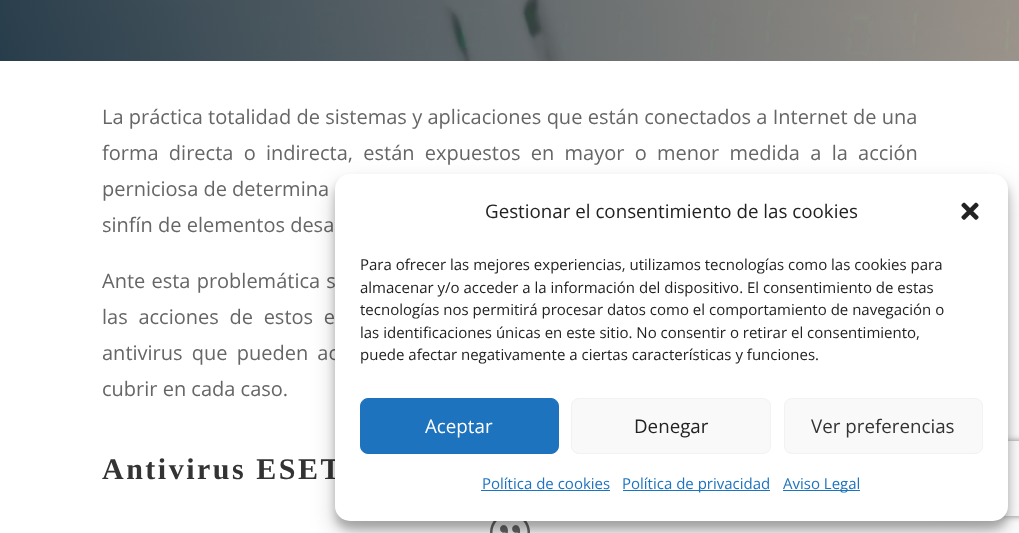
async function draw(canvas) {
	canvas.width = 1019;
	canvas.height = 533;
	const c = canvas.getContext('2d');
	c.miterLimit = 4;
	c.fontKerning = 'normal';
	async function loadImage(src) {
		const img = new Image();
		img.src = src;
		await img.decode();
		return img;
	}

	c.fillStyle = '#fff';
	c.fillRect(0, 0, 1019, 533);
	c.drawImage(await loadImage('img1.png'), 0, 0, 1019, 61);
	c.wordSpacing = '0.1px';
	c.font = '20px Open Sans';
	c.fillStyle = '#666';
	c.fillText('La práctica totalidad de sistemas y aplicaciones que están conectados a Internet de una', 102, 124);
	c.wordSpacing = '5.1px';
	c.fillText('forma directa o indirecta, están expuestos en mayor o menor medida a la acción', 102, 160);
	c.wordSpacing = '0px';
	c.fillText('perniciosa de determina', 102, 196);
	c.fillText('sinfín de elementos desa', 102, 232);
	c.wordSpacing = '1px';
	c.fillText('Ante esta problemática s', 102, 288);
	c.wordSpacing = '5.5px';
	c.fillText('las acciones de estos e', 102, 324);
	c.wordSpacing = '4px';
	c.fillText('antivirus que pueden ac', 102, 360);
	c.wordSpacing = '0px';
	c.fillText('cubrir en cada caso.', 102, 396);
	c.letterSpacing = '2.5px';
	c.font = 'bold 30px Liberation Serif';
	c.fillStyle = '#333';
	c.fillText('Antivirus ESET', 102, 479);
	c.fillStyle = '#f5f5f5';
	c.beginPath();
	c.arc(510, 533, 20, 0, 2 * Math.PI);
	c.fill();
	c.drawImage(await loadImage('img2.png'), 490, 521, 40, 12);
	c.fillStyle = '#0000003b';
	c.filter = 'blur(4px)';
	c.beginPath();
	c.roundRect(335, 181, 673, 348, 15);
	c.fill();
	c.filter = 'none';
	c.fillStyle = '#00000030';
	c.filter = 'blur(12.5px)';
	c.beginPath();
	c.roundRect(335, 186, 673, 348, 15);
	c.fill();
	c.filter = 'none';
	c.save();
	c.beginPath();
	c.moveTo(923, 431);
	c.lineTo(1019, 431);
	c.lineTo(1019, 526);
	c.lineTo(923, 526);
	c.closePath();
	c.moveTo(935.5, 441);
	c.lineTo(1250.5, 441);
	c.bezierCurveTo(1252, 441, 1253, 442, 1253, 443.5);
	c.lineTo(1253, 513.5);
	c.bezierCurveTo(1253, 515, 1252, 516, 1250.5, 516);
	c.lineTo(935.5, 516);
	c.bezierCurveTo(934, 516, 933, 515, 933, 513.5);
	c.lineTo(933, 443.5);
	c.bezierCurveTo(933, 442, 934, 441, 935.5, 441);
	c.closePath();
	c.clip('evenodd');
	c.fillStyle = '#808080';
	c.filter = 'blur(3px)';
	c.beginPath();
	c.roundRect(933, 441, 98, 75, 2.5);
	c.fill();
	c.filter = 'none';
	c.restore();
	c.fillStyle = '#fff';
	c.beginPath();
	c.roundRect(335, 174, 673, 347, 15);
	c.fill();
	c.letterSpacing = '0px';
	c.font = '18.75px Open Sans';
	c.fillStyle = '#222';
	c.fillText('Gestionar el consentimiento de las cookies', 485, 218);
	c.drawImage(await loadImage('img3.png'), 961, 202, 18, 18);
	c.font = '15px Open Sans';
	for (const [text, x, y] of [
		['Para ofrecer las mejores experiencias, utilizamos tecnologías como las cookies para', 360, 270],
		['almacenar y/o acceder a la información del dispositivo. El consentimiento de estas', 360, 293],
		['tecnologías nos permitirá procesar datos como el comportamiento de navegación o', 360, 315],
		['las identificaciones únicas en este sitio. No consentir o retirar el consentimiento,', 360, 338],
		['puede afectar negativamente a ciertas características y funciones.', 360, 360],
	]) {
		c.fillText(text, x, y);
	}
	c.fillStyle = '#1e73be';
	c.beginPath();
	c.roundRect(360.5, 398.5, 198, 55, 7.5);
	c.fill();
	c.strokeStyle = '#1e73be';
	c.stroke();
	c.font = '18.75px Open Sans';
	c.fillStyle = '#fff';
	c.fillText('Aceptar', 425, 433);
	c.fillStyle = '#f9f9f9';
	c.beginPath();
	c.roundRect(571.5, 398.5, 199, 55, 7.5);
	c.fill();
	c.strokeStyle = '#f2f2f2';
	c.stroke();
	c.fillStyle = '#222';
	c.fillText('Denegar', 634, 433);
	c.fillStyle = '#f9f9f9';
	c.beginPath();
	c.roundRect(784.5, 398.5, 198, 55, 7.5);
	c.fill();
	c.stroke();
	c.fillStyle = '#333';
	c.fillText('Ver preferencias', 811, 433);
	c.font = '15px Open Sans';
	c.fillStyle = '#1e73be';
	c.fillText('Política de cookies', 482, 489);
	c.fillRect(481, 490, 129, 1);
	c.fillRect(623, 490, 147, 1);
	c.fillText('Política de privacidad', 622, 489);
	c.fillRect(783, 490, 77, 1);
	c.fillText('Aviso Legal', 783, 489);
}

draw(document.querySelector('canvas'));
